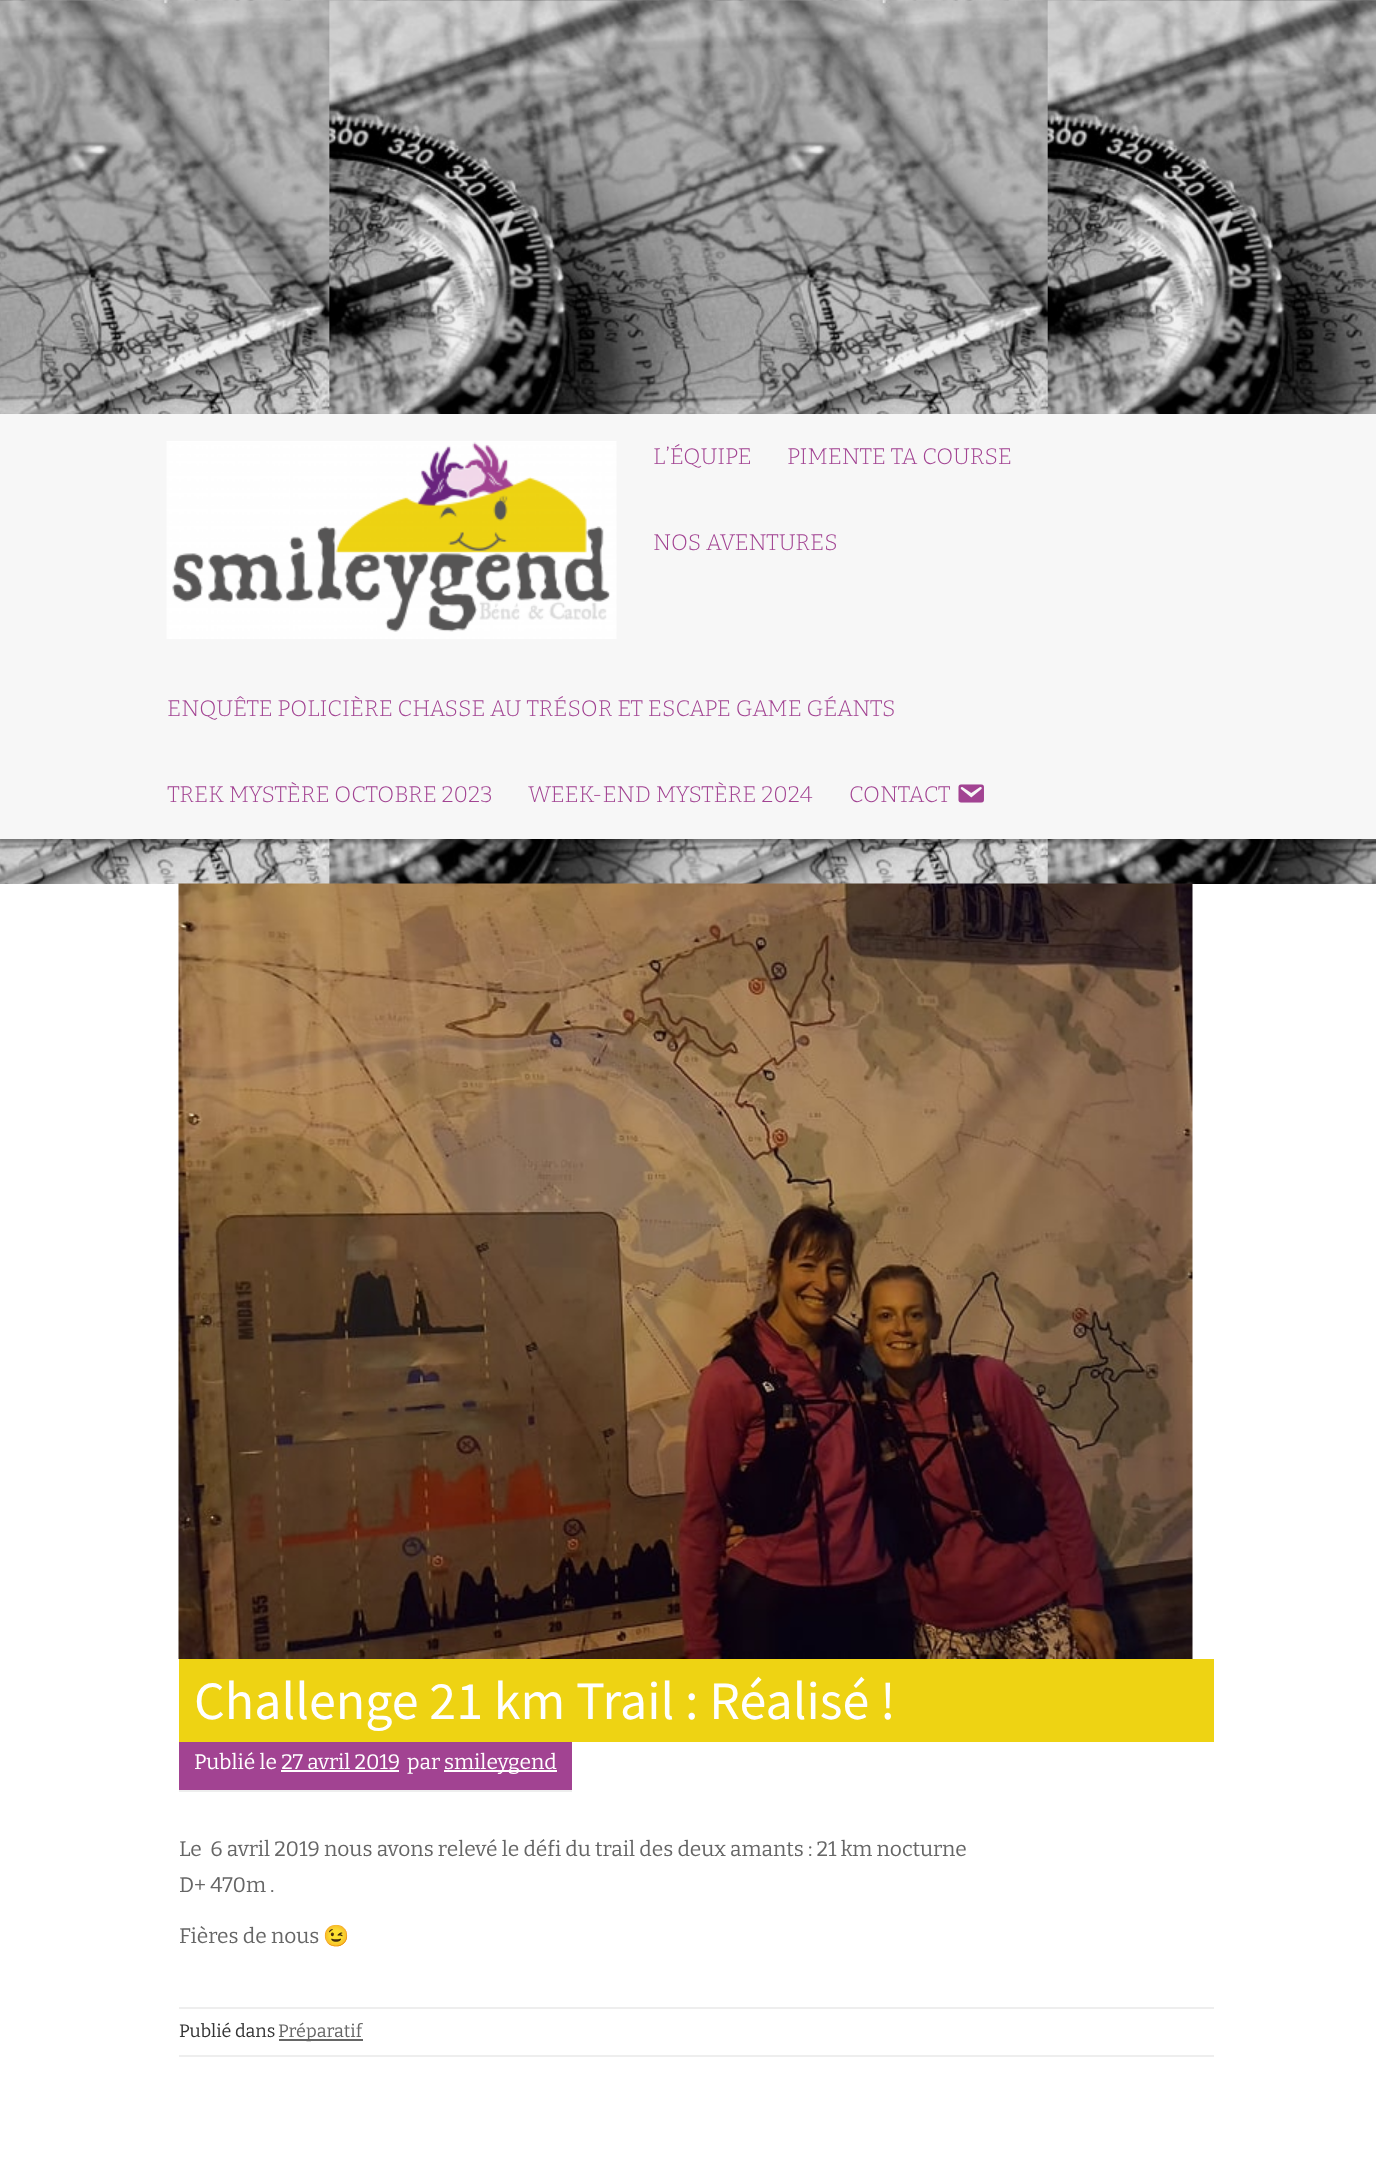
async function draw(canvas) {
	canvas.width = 1376;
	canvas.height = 2164;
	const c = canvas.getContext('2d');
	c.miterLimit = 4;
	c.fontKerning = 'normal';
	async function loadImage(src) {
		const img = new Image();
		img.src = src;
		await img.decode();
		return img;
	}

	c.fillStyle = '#fff';
	c.fillRect(0, 0, 1376, 2164);
	c.drawImage(await loadImage('img1.png'), 0, 0, 1376, 884);
	c.fillStyle = '#0000000d';
	c.fillRect(0, 0, 1376, 414);
	c.fillStyle = '#0000004d';
	c.filter = 'blur(1.5px)';
	c.beginPath();
	c.rect(-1, 416, 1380, 427);
	c.fill();
	c.filter = 'none';
	c.fillStyle = '#f7f7f7';
	c.fillRect(0, 414, 1376, 425);
	c.drawImage(await loadImage('img2.png'), 166, 441, 451, 198);
	c.font = '300 22.5px Bitter';
	c.fillStyle = '#a24392';
	for (const [text, x, y] of [
		['L’ÉQUIPE', 653, 464],
		['PIMENTE TA COURSE', 787, 464],
		['NOS AVENTURES', 653, 550],
		['ENQUÊTE POLICIÈRE CHASSE AU TRÉSOR ET ESCAPE GAME GÉANTS', 167, 716],
		['TREK MYSTÈRE OCTOBRE 2023', 167, 802],
		['WEEK-END MYSTÈRE 2024', 528, 802],
		['CONTACT', 849, 802],
	]) {
		c.fillText(text, x, y);
	}
	c.drawImage(await loadImage('img3.png'), 958, 784, 26, 19);
	c.drawImage(await loadImage('img4.png'), 178, 883, 1015, 776);
	c.fillStyle = '#eed313';
	c.fillRect(179, 1659, 1035, 83);
	c.font = '54px Source Sans Pro';
	c.fillStyle = '#fff';
	c.fillText('Challenge 21 km Trail : Réalisé !', 194, 1719);
	c.fillStyle = '#a24392';
	c.fillRect(179, 1742, 393, 48);
	c.fillStyle = '#eee';
	c.fillRect(179, 1790, 393, 2);
	c.font = '21px Bitter';
	c.fillStyle = '#fff';
	c.fillText('Publié le 27 avril 2019', 194, 1769);
	c.fillRect(281, 1770, 118, 2);
	c.fillText('par', 407, 1769);
	c.fillRect(444, 1770, 113, 2);
	c.fillText('smileygend', 444, 1769);
	c.fillStyle = '#666';
	for (const [text, x, y] of [
		['Le  6 avril 2019 nous avons relevé le défi du trail des deux amants : 21 km nocturne', 179, 1856],
		['D+ 470m .', 179, 1892],
		['Fières de nous', 179, 1943],
	]) {
		c.fillText(text, x, y);
	}
	c.font = '21px Noto Color Emoji';
	c.fillText('😉', 323, 1943);
	c.fillStyle = '#eee';
	c.fillRect(179, 2007, 1035, 2);
	c.fillRect(179, 2055, 1035, 2);
	c.font = '18px Bitter';
	c.fillStyle = '#333';
	c.fillText('Publié dans', 179, 2037);
	c.fillStyle = '#666';
	c.fillRect(279, 2039, 84, 2);
	c.fillText('Préparatif', 278, 2037);
}

draw(document.querySelector('canvas'));
